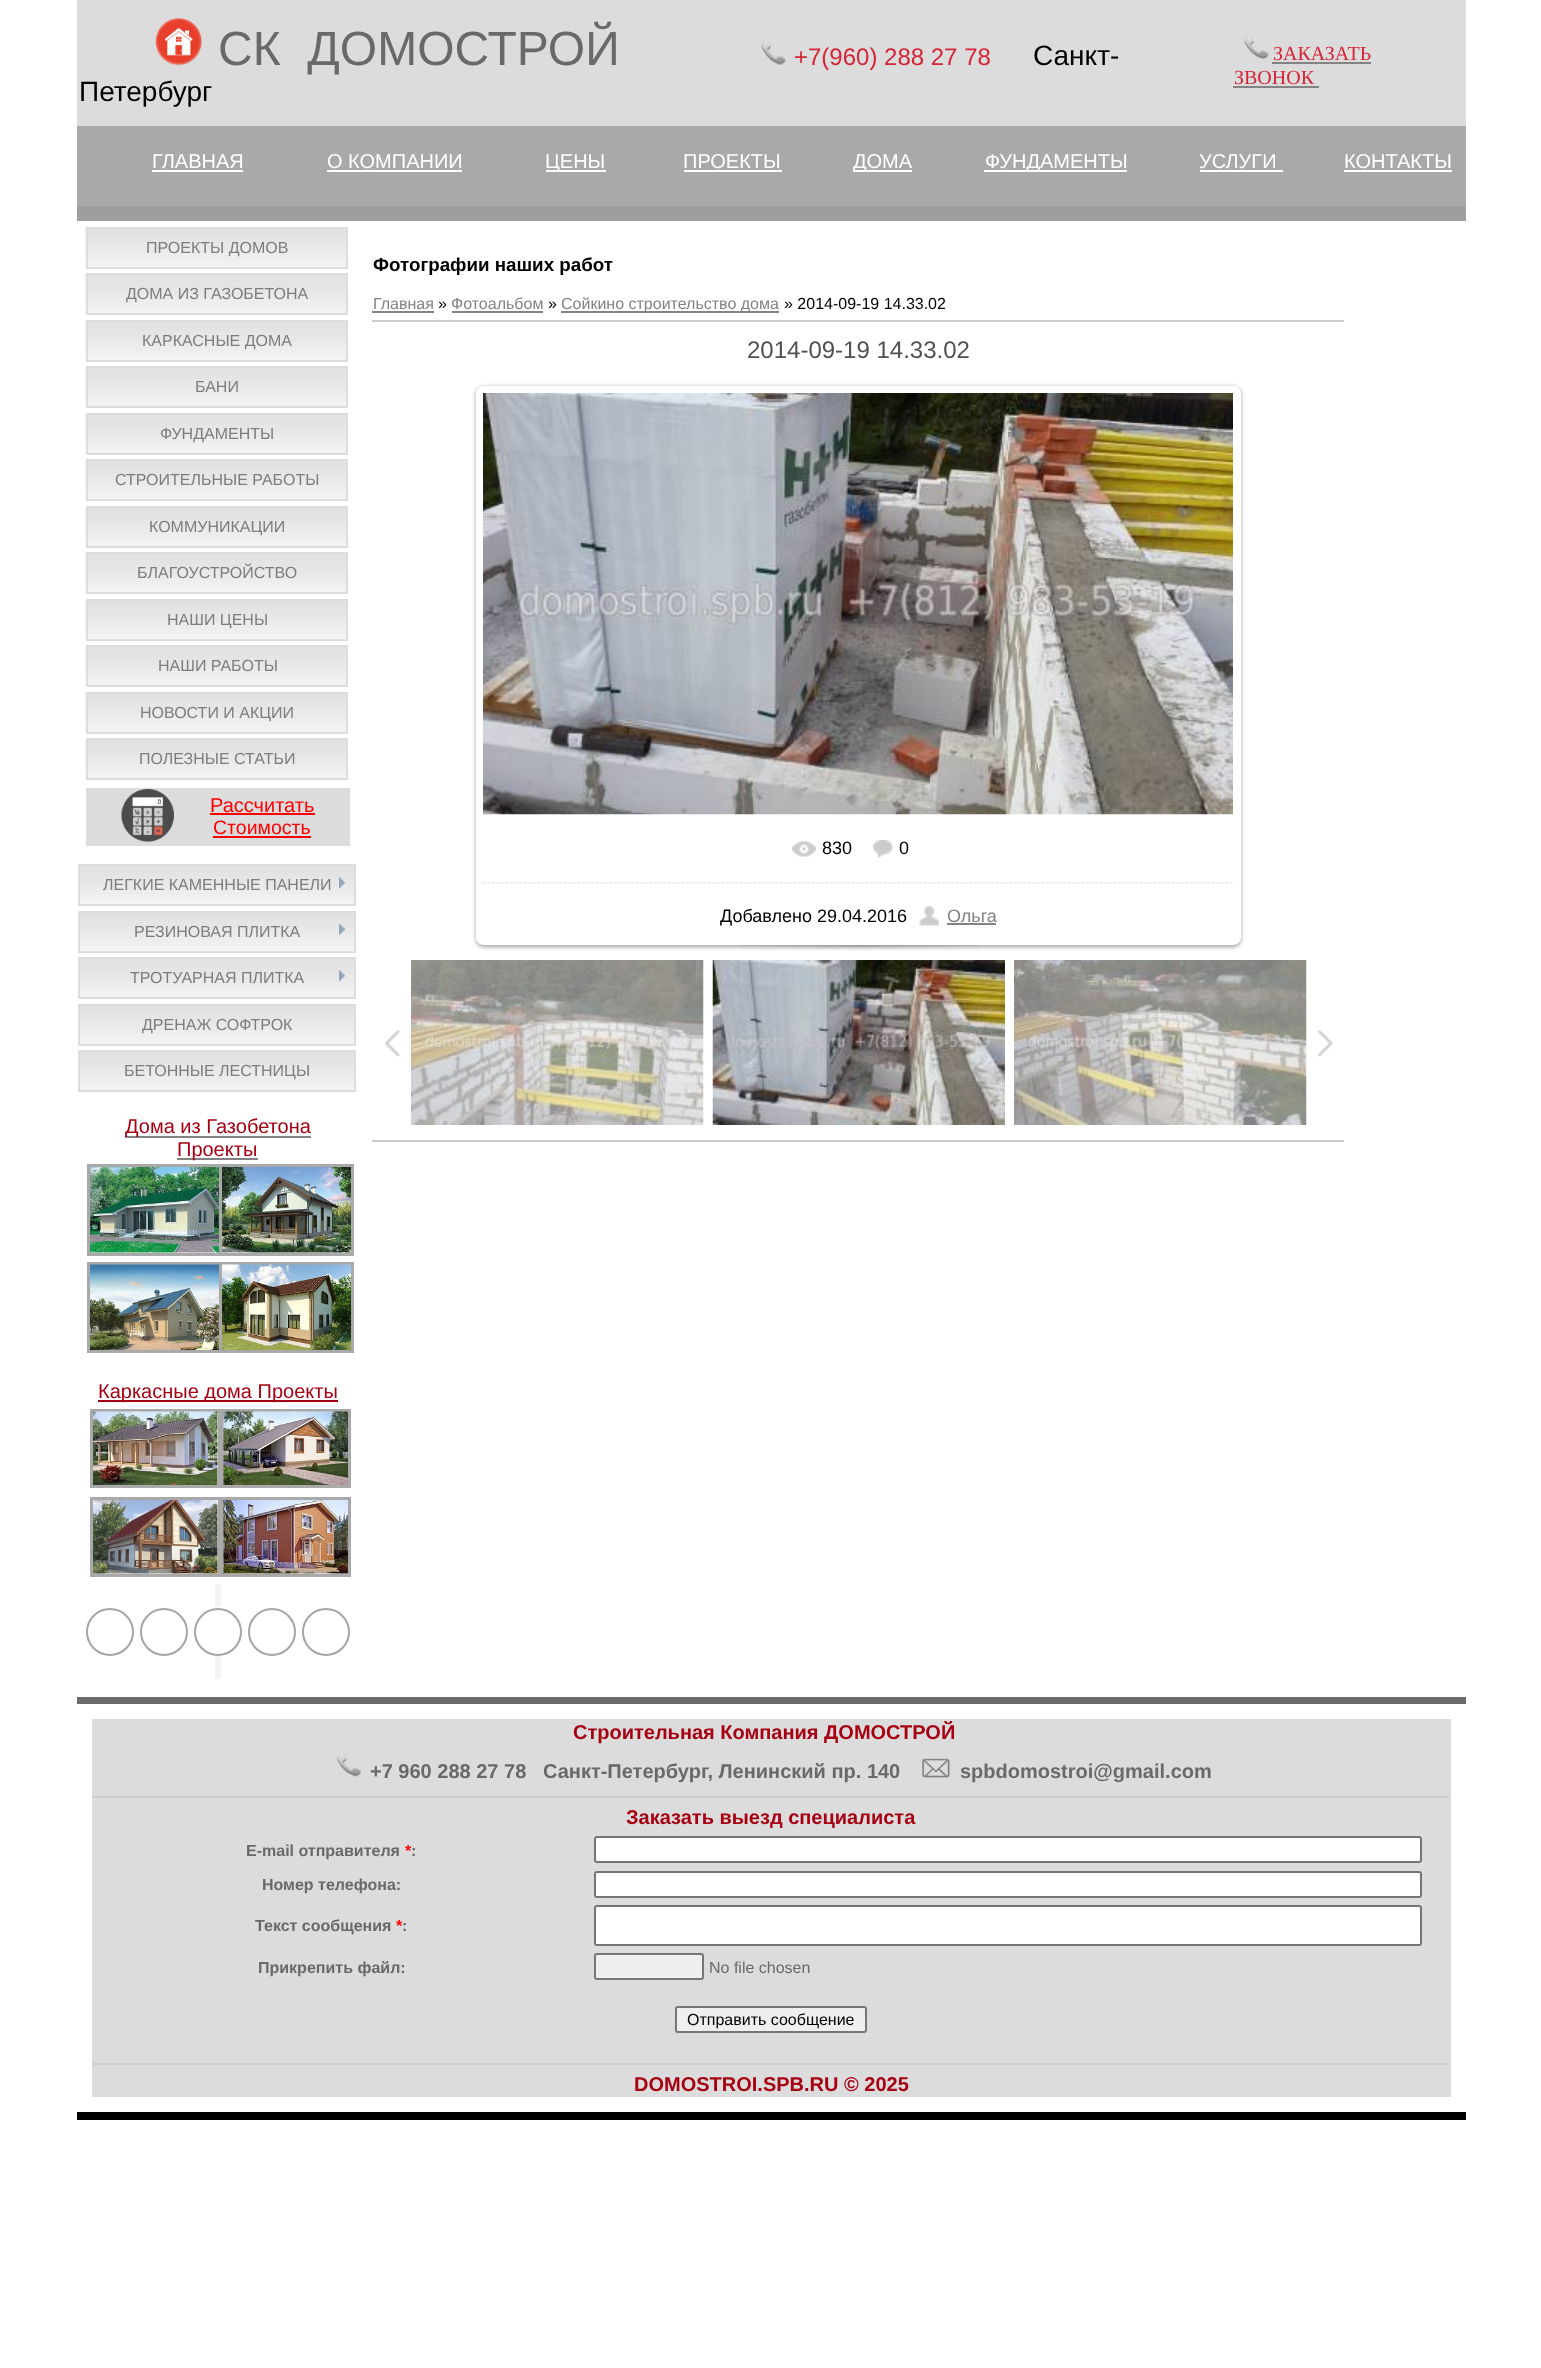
async function draw(canvas) {
	canvas.width = 1541;
	canvas.height = 2368;
	const c = canvas.getContext('2d');
	c.miterLimit = 4;
	c.fontKerning = 'normal';
	async function loadImage(src) {
		const img = new Image();
		img.src = src;
		await img.decode();
		return img;
	}

	c.fillStyle = '#fff';
	c.fillRect(0, 0, 1541, 2368);
	c.fillStyle = '#dcdcdc';
	c.fillRect(77, 0, 1389, 126);
	c.drawImage(await loadImage('img1.png'), 155, 18, 47, 48);
	c.font = '48px Liberation Sans';
	c.fillStyle = '#696969';
	c.fillText('СК  ДОМОСТРОЙ', 218, 65);
	c.drawImage(await loadImage('img2.png'), 761, 40, 25, 25);
	c.font = '24px Liberation Sans';
	c.fillStyle = '#d52437';
	c.fillText('+7(960) 288 27 78', 794, 65);
	c.font = '28px Liberation Sans';
	c.fillStyle = '#000';
	c.fillText('Санкт-', 1033, 65);
	c.fillText('Петербург', 79, 101);
	c.drawImage(await loadImage('img3.png'), 1244, 36, 25, 23);
	c.font = '20px Liberation Serif';
	c.fillStyle = '#d52437';
	c.fillText('ЗАКАЗАТЬ', 1273, 60);
	c.fillStyle = '#838383';
	c.fillRect(1272, 62, 99, 2);
	c.fillStyle = '#d52437';
	c.fillText('ЗВОНОК', 1234, 84);
	c.fillStyle = '#838383';
	c.fillRect(1233, 86, 86, 2);
	c.fillStyle = '#a9a9a9';
	c.fillRect(77, 126, 1389, 80);
	c.font = '20px Liberation Sans';
	c.fillStyle = '#fff';
	c.fillText('ГЛАВНАЯ', 152, 168);
	c.fillRect(152, 170, 91, 2);
	c.fillText('О КОМПАНИИ', 327, 168);
	c.fillRect(327, 170, 135, 2);
	c.fillRect(546, 170, 60, 2);
	c.fillText('ЦЕНЫ', 545, 168);
	c.fillText('ПРОЕКТЫ', 683, 168);
	c.fillRect(684, 170, 98, 2);
	c.fillRect(854, 170, 58, 2);
	c.fillText('ДОМА', 853, 168);
	c.fillRect(984, 170, 143, 2);
	c.fillText('ФУНДАМЕНТЫ', 985, 168);
	c.fillText('УСЛУГИ', 1199, 168);
	c.fillRect(1200, 170, 83, 2);
	c.fillText('КОНТАКТЫ', 1344, 168);
	c.fillRect(1344, 170, 108, 2);
	c.fillStyle = '#9e9e9e';
	c.fillRect(77, 206, 1389, 15);
	c.drawImage(await loadImage('img4.png'), 85, 228, 261, 41);
	c.strokeStyle = '#ddd';
	c.lineWidth = 2;
	c.strokeRect(87, 228, 260, 40);
	c.font = '16px Liberation Sans';
	c.fillStyle = '#7d7d7d';
	c.fillText('ПРОЕКТЫ ДОМОВ', 146, 253);
	c.drawImage(await loadImage('img5.png'), 85, 274, 261, 41);
	c.strokeRect(87, 274, 260, 40);
	c.fillText('ДОМА ИЗ ГАЗОБЕТОНА', 126, 299);
	c.drawImage(await loadImage('img4.png'), 85, 321, 261, 41);
	c.strokeRect(87, 321, 260, 40);
	c.fillText('КАРКАСНЫЕ ДОМА', 142, 346);
	c.drawImage(await loadImage('img5.png'), 85, 367, 261, 41);
	c.strokeRect(87, 367, 260, 40);
	c.fillText('БАНИ', 195, 392);
	c.drawImage(await loadImage('img4.png'), 85, 414, 261, 41);
	c.strokeRect(87, 414, 260, 40);
	c.fillText('ФУНДАМЕНТЫ', 160, 439);
	c.drawImage(await loadImage('img5.png'), 85, 460, 261, 41);
	c.strokeRect(87, 460, 260, 40);
	c.fillText('СТРОИТЕЛЬНЫЕ РАБОТЫ', 115, 485);
	c.drawImage(await loadImage('img4.png'), 85, 507, 261, 41);
	c.strokeRect(87, 507, 260, 40);
	c.fillText('КОММУНИКАЦИИ', 149, 532);
	c.drawImage(await loadImage('img5.png'), 85, 553, 261, 41);
	c.strokeRect(87, 553, 260, 40);
	c.fillText('БЛАГОУСТРОЙСТВО', 137, 578);
	c.drawImage(await loadImage('img4.png'), 85, 600, 261, 41);
	c.strokeRect(87, 600, 260, 40);
	c.fillText('НАШИ ЦЕНЫ', 167, 625);
	c.drawImage(await loadImage('img5.png'), 85, 646, 261, 41);
	c.strokeRect(87, 646, 260, 40);
	c.fillText('НАШИ РАБОТЫ', 158, 671);
	c.drawImage(await loadImage('img4.png'), 85, 693, 261, 41);
	c.strokeRect(87, 693, 260, 40);
	c.fillText('НОВОСТИ И АКЦИИ', 140, 718);
	c.drawImage(await loadImage('img5.png'), 85, 739, 261, 41);
	c.strokeRect(87, 739, 260, 40);
	c.fillText('ПОЛЕЗНЫЕ СТАТЬИ', 139, 764);
	c.fillStyle = '#dcdcdc';
	c.fillRect(86, 788, 264, 58);
	c.drawImage(await loadImage('img6.png'), 121, 789, 53, 53);
	c.font = '20px Liberation Sans';
	c.fillStyle = '#f00';
	c.fillText('Рассчитать', 210, 812);
	c.fillRect(210, 813, 105, 2);
	c.font = '19.5px Liberation Sans';
	c.fillText('Стоимость', 213, 834);
	c.fillRect(213, 836, 98, 2);
	c.drawImage(await loadImage('img7.png'), 80, 866, 274, 38);
	c.strokeRect(79, 865, 276, 40);
	c.font = '16px Liberation Sans';
	c.fillStyle = '#7d7d7d';
	c.fillText('ЛЕГКИЕ КАМЕННЫЕ ПАНЕЛИ', 103, 890);
	c.drawImage(await loadImage('img8.png'), 339, 877, 6, 11);
	c.drawImage(await loadImage('img9.png'), 80, 913, 274, 38);
	c.strokeRect(79, 912, 276, 40);
	c.fillText('РЕЗИНОВАЯ ПЛИТКА', 134, 937);
	c.drawImage(await loadImage('img10.png'), 339, 924, 6, 11);
	c.drawImage(await loadImage('img7.png'), 80, 959, 274, 38);
	c.strokeRect(79, 958, 276, 40);
	c.fillText('ТРОТУАРНАЯ ПЛИТКА', 130, 983);
	c.drawImage(await loadImage('img8.png'), 339, 970, 6, 11);
	c.drawImage(await loadImage('img9.png'), 80, 1006, 274, 38);
	c.strokeRect(79, 1005, 276, 40);
	c.fillText('ДРЕНАЖ СОФТРОК', 142, 1030);
	c.drawImage(await loadImage('img7.png'), 80, 1052, 274, 38);
	c.strokeRect(79, 1051, 276, 40);
	c.fillText('БЕТОННЫЕ ЛЕСТНИЦЫ', 124, 1076);
	c.fillStyle = '#838383';
	c.fillRect(125, 1136, 186, 2);
	c.font = '20px Liberation Sans';
	c.fillStyle = '#a60012';
	c.fillText('Дома из Газобетона', 125, 1133);
	c.fillStyle = '#838383';
	c.fillRect(177, 1158, 81, 2);
	c.fillStyle = '#a60012';
	c.fillText('Проекты', 177, 1156);
	c.strokeStyle = '#a9a9a9';
	c.lineWidth = 3;
	c.strokeRect(88.5, 1165.5, 132, 89);
	c.drawImage(await loadImage('img11.png'), 90, 1167, 129, 86);
	c.strokeRect(220.5, 1165.5, 132, 89);
	c.drawImage(await loadImage('img12.png'), 222, 1167, 129, 86);
	c.strokeRect(88.5, 1263.5, 132, 88);
	c.drawImage(await loadImage('img13.png'), 90, 1264, 129, 86);
	c.strokeRect(220.5, 1263.5, 132, 88);
	c.drawImage(await loadImage('img14.png'), 222, 1264, 129, 86);
	c.fillRect(98, 1400, 240, 2);
	c.fillText('Каркасные дома Проекты', 98, 1398);
	c.strokeRect(91.5, 1410.5, 128, 76);
	c.drawImage(await loadImage('img15.png'), 93, 1411, 125, 74);
	c.strokeRect(222.5, 1410.5, 127, 76);
	c.drawImage(await loadImage('img16.png'), 223, 1411, 125, 74);
	c.strokeRect(91.5, 1498.5, 128, 77);
	c.drawImage(await loadImage('img17.png'), 93, 1500, 125, 74);
	c.strokeRect(222.5, 1498.5, 127, 77);
	c.drawImage(await loadImage('img18.png'), 223, 1500, 125, 74);
	c.fillStyle = '#f4f4f4';
	c.fillRect(215, 1584, 6, 23);
	c.beginPath();
	c.arc(110, 1632, 23, 0, 2 * Math.PI);
	c.strokeStyle = '#a5a5a5';
	c.lineWidth = 2;
	c.stroke();
	c.beginPath();
	c.arc(164, 1632, 23, 0, 2 * Math.PI);
	c.stroke();
	c.beginPath();
	c.arc(218, 1632, 23, 0, 2 * Math.PI);
	c.stroke();
	c.beginPath();
	c.arc(272, 1632, 23, 0, 2 * Math.PI);
	c.stroke();
	c.beginPath();
	c.arc(326, 1632, 23, 0, 2 * Math.PI);
	c.stroke();
	c.fillRect(215, 1656, 6, 23);
	c.font = 'bold 18.75px Liberation Sans';
	c.fillStyle = '#000';
	c.fillText('Фотографии наших работ', 373, 271);
	c.font = '16px Liberation Sans';
	c.fillStyle = '#838383';
	c.fillText('Главная', 373, 309);
	c.fillRect(372, 311, 62, 2);
	c.fillStyle = '#000';
	c.fillText('»', 438, 309);
	c.fillStyle = '#838383';
	c.fillText('Фотоальбом', 451, 309);
	c.fillRect(452, 311, 91, 2);
	c.fillStyle = '#000';
	c.fillText('»', 548, 309);
	c.fillStyle = '#838383';
	c.fillRect(561, 311, 218, 2);
	c.fillText('Сойкино строительство дома', 561, 309);
	c.fillStyle = '#000';
	c.fillText('» 2014-09-19 14.33.02', 784, 309);
	c.fillStyle = '#ccc';
	c.fillRect(372, 320, 972, 2);
	c.font = '24px Liberation Sans';
	c.fillStyle = '#505050';
	c.fillText('2014-09-19 14.33.02', 747, 358);
	c.save();
	c.beginPath();
	c.moveTo(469, 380);
	c.lineTo(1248, 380);
	c.lineTo(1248, 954);
	c.lineTo(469, 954);
	c.closePath();
	c.moveTo(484, 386);
	c.lineTo(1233, 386);
	c.bezierCurveTo(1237.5, 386, 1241, 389.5, 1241, 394);
	c.lineTo(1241, 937);
	c.bezierCurveTo(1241, 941.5, 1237.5, 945, 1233, 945);
	c.lineTo(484, 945);
	c.bezierCurveTo(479.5, 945, 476, 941.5, 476, 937);
	c.lineTo(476, 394);
	c.bezierCurveTo(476, 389.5, 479.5, 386, 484, 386);
	c.closePath();
	c.clip('evenodd');
	c.fillStyle = '#0000005e';
	c.filter = 'blur(2px)';
	c.beginPath();
	c.roundRect(476, 387, 765, 560, 8);
	c.fill();
	c.filter = 'none';
	c.restore();
	c.drawImage(await loadImage('img19.png'), 483, 393, 750, 422);
	c.drawImage(await loadImage('img20.png'), 792, 841, 24, 16);
	c.font = '18px Liberation Sans';
	c.fillStyle = '#000';
	c.fillText('830', 822, 854);
	c.drawImage(await loadImage('img21.png'), 873, 840, 20, 18);
	c.fillText('0', 899, 854);
	c.drawImage(await loadImage('img22.png'), 483, 882, 750, 2);
	c.fillText('Добавлено 29.04.2016', 720, 922);
	c.drawImage(await loadImage('img23.png'), 919, 906, 20, 20);
	c.fillStyle = '#838383';
	c.fillText('Ольга', 947, 922);
	c.fillRect(947, 923, 49, 2);
	c.drawImage(await loadImage('img24.png'), 739, 945, 240, 5);
	c.drawImage(await loadImage('img25.png'), 384, 1030, 17, 27);
	c.drawImage(await loadImage('img26.png'), 411, 960, 293, 165);
	c.drawImage(await loadImage('img27.png'), 712, 960, 293, 165);
	c.drawImage(await loadImage('img28.png'), 1014, 960, 293, 165);
	c.drawImage(await loadImage('img29.png'), 1317, 1030, 17, 27);
	for (const [x, y, w, h, color] of [
		[372, 1140, 972, 2, '#ccc'],
		[77, 1697, 1389, 7, '#6b6b6b'],
		[77, 2112, 1389, 8, '#000'],
		[92, 1719, 1359, 378, '#dcdcdc'],
	]) {
		c.fillStyle = color;
		c.fillRect(x, y, w, h);
	}
	c.font = 'bold 20px Liberation Sans';
	c.fillStyle = '#a60012';
	c.fillText('Строительная Компания ДОМОСТРОЙ', 573, 1739);
	c.drawImage(await loadImage('img30.png'), 337, 1753, 24, 24);
	c.fillStyle = '#696969';
	c.fillText('+7 960 288 27 78', 370, 1778);
	c.fillText('Санкт-Петербург, Ленинский пр. 140', 543, 1778);
	c.drawImage(await loadImage('img31.png'), 922, 1758, 28, 20);
	c.fillText('spbdomostroi@gmail.com', 960, 1778);
	c.fillStyle = '#ccc';
	c.fillRect(93, 1796, 1356, 2);
	c.fillStyle = '#a60012';
	c.fillText('Заказать выезд специалиста', 626, 1824);
	c.font = 'bold 16px Liberation Sans';
	c.fillStyle = '#696969';
	c.fillText('E-mail отправителя', 246, 1856);
	c.fillStyle = '#f00';
	c.fillText('*', 405, 1856);
	c.fillStyle = '#696969';
	c.fillText(':', 411, 1856);
	c.fillStyle = '#fff';
	c.beginPath();
	c.roundRect(595, 1837, 826, 25, 2);
	c.fill();
	c.strokeStyle = '#767676';
	c.stroke();
	c.fillStyle = '#696969';
	c.fillText('Номер телефона:', 262, 1890);
	c.fillStyle = '#fff';
	c.beginPath();
	c.roundRect(595, 1872, 826, 25, 2);
	c.fill();
	c.stroke();
	c.fillStyle = '#696969';
	c.fillText('Текст сообщения', 255, 1931);
	c.fillStyle = '#f00';
	c.fillText('*', 396, 1931);
	c.fillStyle = '#696969';
	c.fillText(':', 402, 1931);
	c.fillStyle = '#fff';
	c.beginPath();
	c.roundRect(595, 1906, 826, 39, 2);
	c.fill();
	c.stroke();
	c.fillStyle = '#696969';
	c.fillText('Прикрепить файл:', 258, 1973);
	c.fillStyle = '#efefef';
	c.beginPath();
	c.roundRect(595, 1954, 108, 25, 2);
	c.fill();
	c.stroke();
	c.font = '16px Liberation Sans';
	c.fillStyle = '#696969';
	c.fillText('No file chosen', 709, 1973);
	c.fillStyle = '#efefef';
	c.beginPath();
	c.roundRect(676, 2007, 190, 25, 2);
	c.fill();
	c.stroke();
	c.fillStyle = '#000';
	c.fillText('Отправить сообщение', 687, 2025);
	c.fillStyle = '#ccc';
	c.fillRect(93, 2063, 1356, 2);
	c.font = 'bold 20px Liberation Sans';
	c.fillStyle = '#a60012';
	c.fillText('DOMOSTROI.SPB.RU © 2025', 634, 2091);
}

draw(document.querySelector('canvas'));
